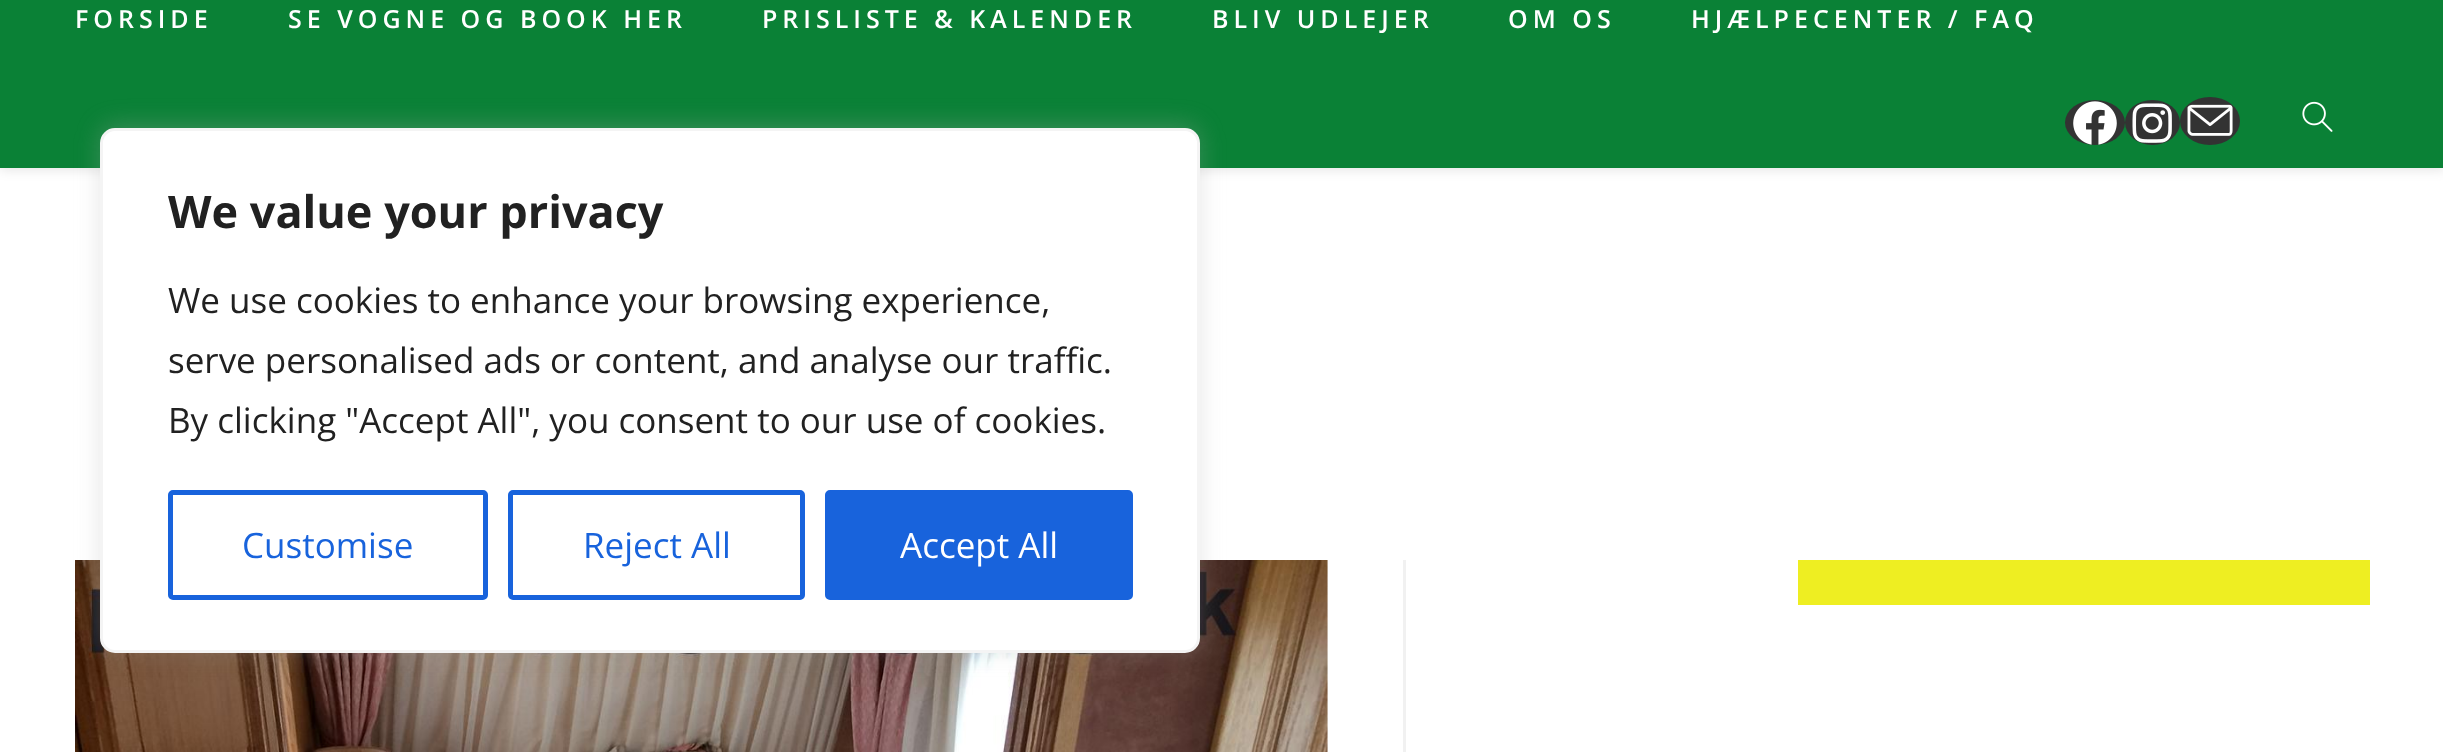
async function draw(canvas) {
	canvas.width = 2443;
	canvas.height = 752;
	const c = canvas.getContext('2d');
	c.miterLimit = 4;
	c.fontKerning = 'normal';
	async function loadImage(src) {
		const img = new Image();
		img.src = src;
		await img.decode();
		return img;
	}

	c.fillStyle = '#fff';
	c.fillRect(0, 0, 2443, 752);
	c.fillStyle = '#0000001a';
	c.filter = 'blur(6px)';
	c.beginPath();
	c.rect(0, -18, 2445, 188);
	c.fill();
	c.filter = 'none';
	c.fillStyle = '#0a8136';
	c.fillRect(0, 0, 2443, 168);
	c.letterSpacing = '5px';
	c.font = '600 25px Open Sans';
	c.fillStyle = '#fff';
	for (const [text, x, y] of [
		['FORSIDE', 75, 28],
		['SE VOGNE OG BOOK HER', 288, 28],
		['PRISLISTE & KALENDER', 762, 28],
		['BLIV UDLEJER', 1212, 28],
		['OM OS', 1508, 28],
		['HJÆLPECENTER / FAQ', 1691, 28],
	]) {
		c.fillText(text, x, y);
	}
	c.fillStyle = '#333';
	c.beginPath();
	c.ellipse(2095, 122.5, 30, 22.5, 0, 0, 2 * Math.PI);
	c.fill();
	c.drawImage(await loadImage('img1.png'), 2073, 101, 44, 44);
	c.beginPath();
	c.ellipse(2152.5, 122.5, 27.5, 22.5, 0, 0, 2 * Math.PI);
	c.fill();
	c.drawImage(await loadImage('img2.png'), 2132, 103, 40, 40);
	c.beginPath();
	c.ellipse(2210, 121, 30, 24, 0, 0, 2 * Math.PI);
	c.fill();
	c.drawImage(await loadImage('img3.png'), 2187, 104, 46, 32);
	c.drawImage(await loadImage('img4.png'), 2302, 101, 31, 31);
	c.fillStyle = '#f1f1f1';
	c.fillRect(1403, 560, 3, 192);
	c.drawImage(await loadImage('img5.png'), 75, 560, 1253, 192);
	c.fillStyle = '#ee2';
	c.fillRect(1798, 560, 572, 45);
	c.fillStyle = '#acabab4d';
	c.filter = 'blur(12.5px)';
	c.beginPath();
	c.roundRect(100, 125, 1100, 525, 15);
	c.fill();
	c.filter = 'none';
	c.fillStyle = '#fff';
	c.beginPath();
	c.roundRect(101.5, 129.5, 1097, 522, 13.5);
	c.fill();
	c.strokeStyle = '#f4f4f4';
	c.lineWidth = 3;
	c.stroke();
	c.letterSpacing = '0px';
	c.font = 'bold 45px Open Sans';
	c.fillStyle = '#212121';
	c.fillText('We value your privacy', 168, 228);
	c.font = '35px Open Sans';
	for (const [text, x, y] of [
		['We use cookies to enhance your browsing experience,', 168, 313],
		['serve personalised ads or content, and analyse our traffic.', 168, 373],
		['By clicking "Accept All", you consent to our use of cookies.', 168, 433],
	]) {
		c.fillText(text, x, y);
	}
	c.beginPath();
	c.roundRect(170.5, 492.5, 315, 105, 2.5);
	c.strokeStyle = '#1863dc';
	c.lineWidth = 5;
	c.stroke();
	c.fillStyle = '#1863dc';
	c.fillText('Customise', 242, 558);
	c.beginPath();
	c.roundRect(510.5, 492.5, 292, 105, 2.5);
	c.stroke();
	c.fillText('Reject All', 583, 558);
	c.beginPath();
	c.roundRect(827.5, 492.5, 303, 105, 2.5);
	c.fill();
	c.stroke();
	c.fillStyle = '#fff';
	c.fillText('Accept All', 900, 558);
}

draw(document.querySelector('canvas'));
